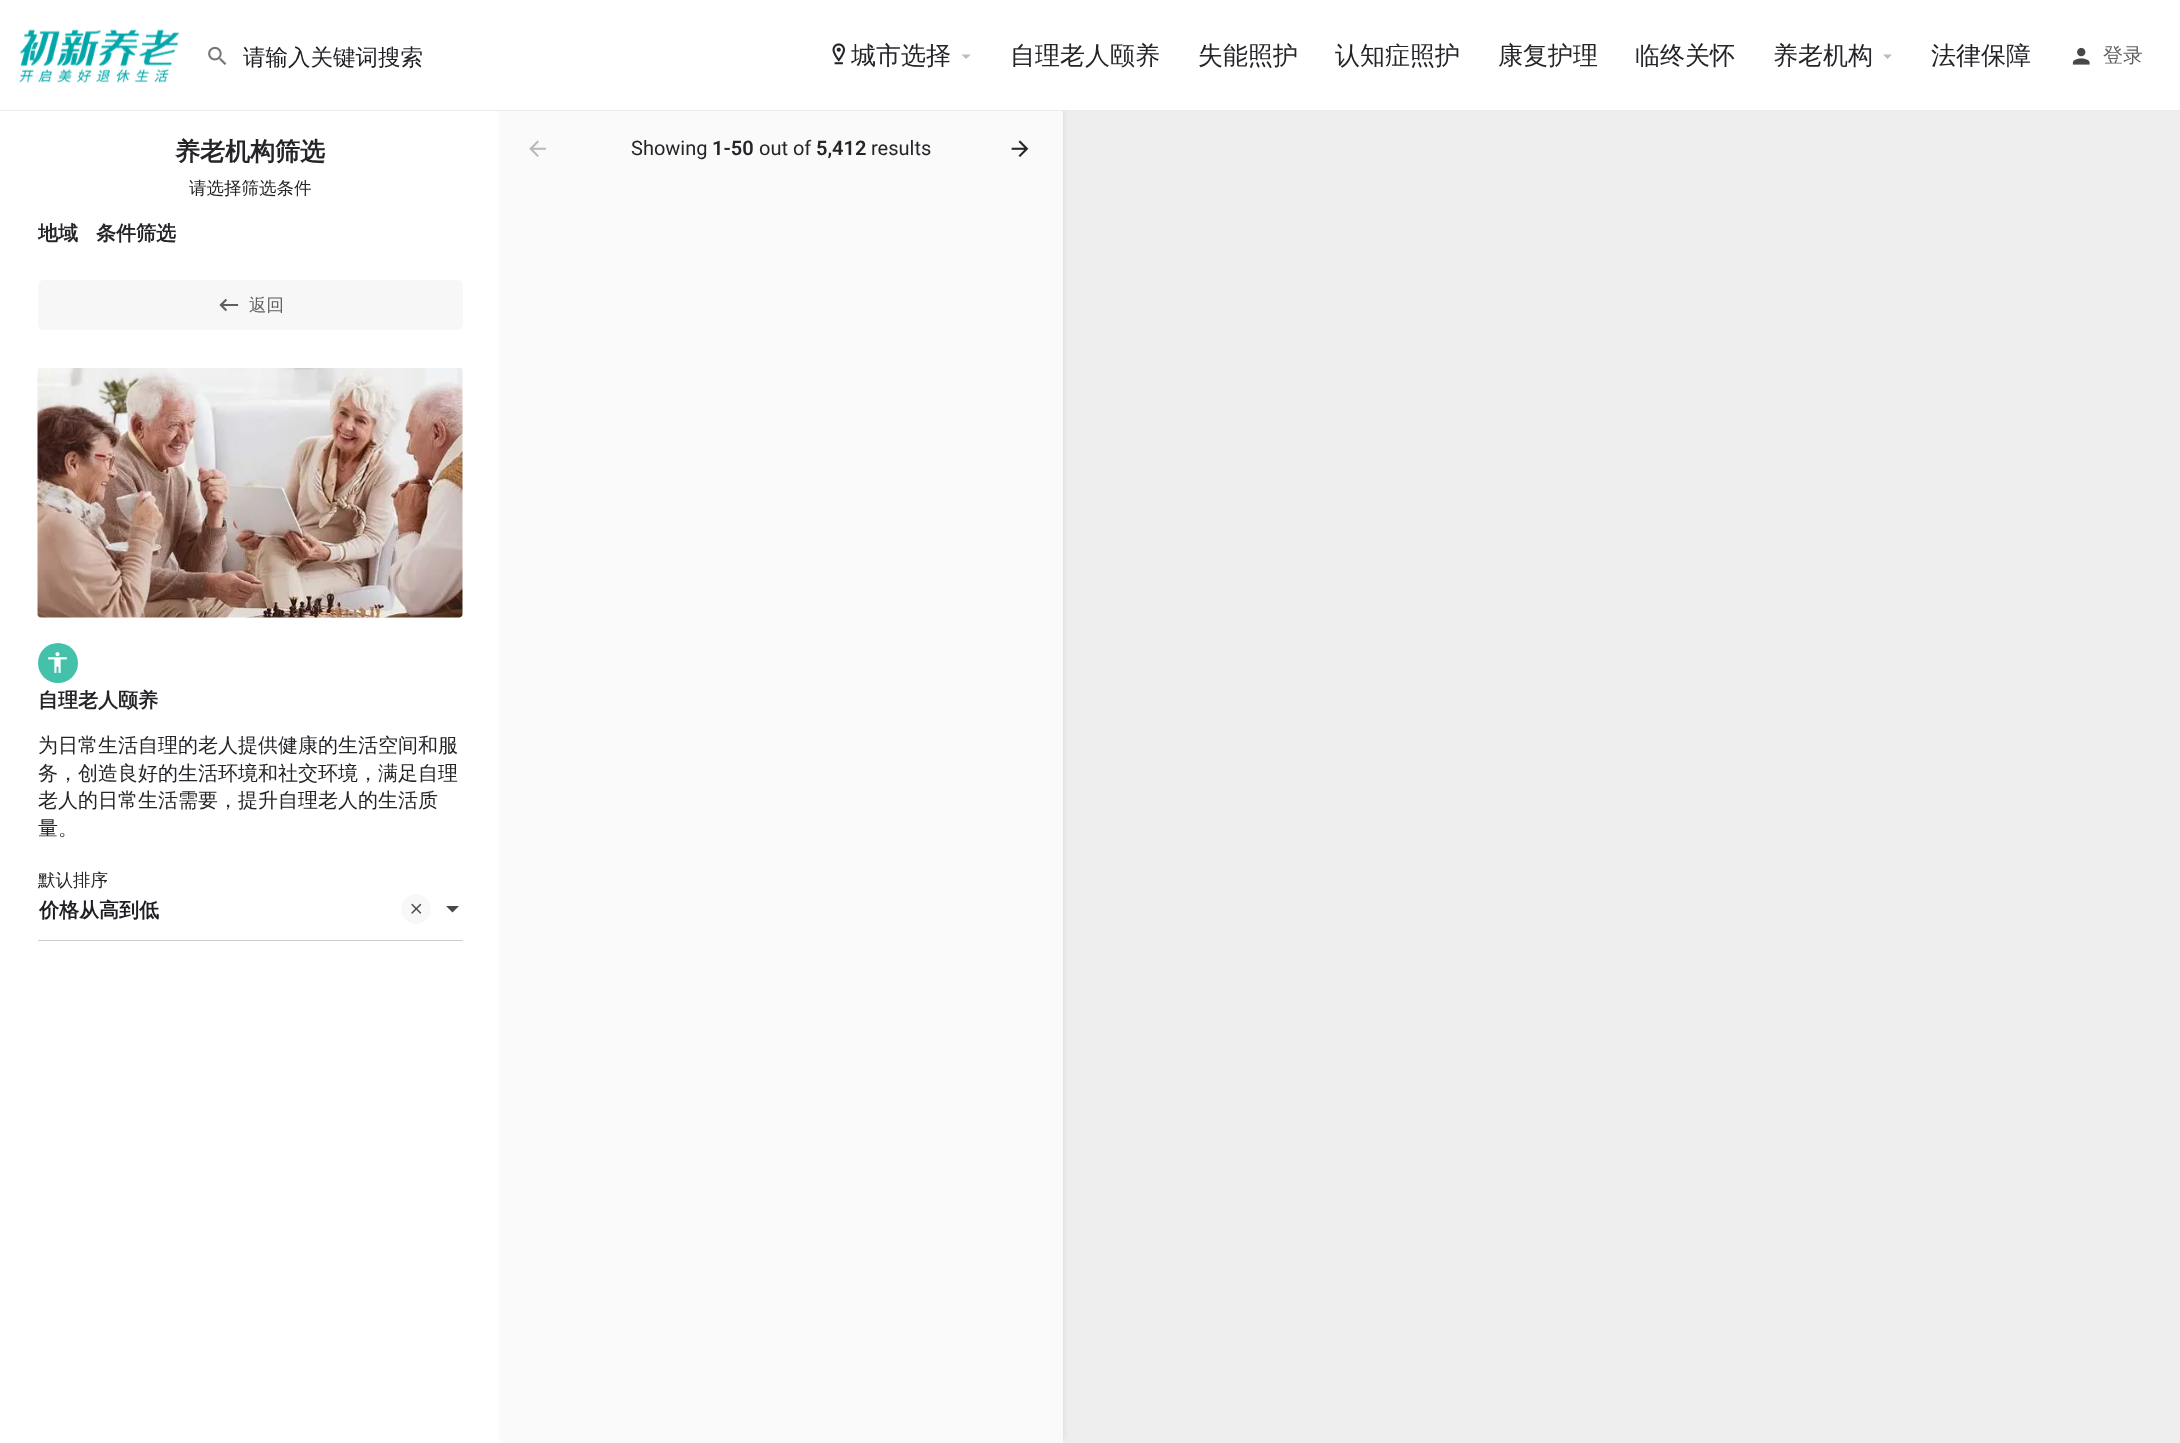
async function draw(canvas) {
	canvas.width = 2180;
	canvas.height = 1443;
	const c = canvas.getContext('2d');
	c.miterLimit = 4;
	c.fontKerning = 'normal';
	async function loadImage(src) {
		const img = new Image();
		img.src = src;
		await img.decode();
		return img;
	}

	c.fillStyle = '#fff';
	c.fillRect(0, 0, 2180, 1443);
	c.drawImage(await loadImage('img1.png'), 19, 29, 161, 54);
	c.drawImage(await loadImage('img2.png'), 208, 46, 19, 19);
	c.font = '500 22.5px WenQuanYi Zen Hei';
	c.fillStyle = '#1d1d23';
	c.fillText('请输入关键词搜索', 243, 65);
	c.drawImage(await loadImage('img3.png'), 832, 43, 13, 22);
	c.font = '500 25px WenQuanYi Zen Hei';
	c.fillStyle = '#242429';
	c.fillText('城市选择', 851, 64);
	c.fillStyle = '#bdbdbf';
	c.beginPath();
	c.moveTo(961.5, 54.5);
	c.lineTo(971, 54.5);
	c.lineTo(966, 59);
	c.closePath();
	c.fill();
	c.fillStyle = '#242429';
	for (const [text, x, y] of [
		['自理老人颐养', 1010, 64],
		['失能照护', 1198, 64],
		['认知症照护', 1335, 64],
		['康复护理', 1498, 64],
		['临终关怀', 1635, 64],
		['养老机构', 1773, 64],
	]) {
		c.fillText(text, x, y);
	}
	c.fillStyle = '#bdbdbf';
	c.beginPath();
	c.moveTo(1883, 54.5);
	c.lineTo(1892, 54.5);
	c.lineTo(1887.5, 59);
	c.closePath();
	c.fill();
	c.fillStyle = '#242429';
	c.fillText('法律保障', 1931, 64);
	c.drawImage(await loadImage('img4.png'), 2072, 47, 18, 18);
	c.font = '500 20px WenQuanYi Zen Hei';
	c.fillStyle = '#616165';
	c.fillText('登录', 2103, 62);
	c.fillStyle = '#eee';
	c.fillRect(1063, 111, 1117, 1332);
	c.fillStyle = '#00000012';
	c.filter = 'blur(2.5px)';
	c.beginPath();
	c.rect(501, 106, 563, 1333);
	c.fill();
	c.filter = 'none';
	c.fillStyle = '#fff';
	c.fillRect(498, 103, 569, 7);
	c.fillStyle = '#ebebeb';
	c.fillRect(0, 110, 2180, 1);
	c.font = 'bold 25px WenQuanYi Zen Hei';
	c.fillStyle = '#242429';
	c.fillText('养老机构筛选', 175, 160);
	c.font = '500 17.5px WenQuanYi Zen Hei';
	c.fillText('请选择筛选条件', 189, 194);
	c.font = 'bold 20px WenQuanYi Zen Hei';
	c.fillText('地域', 38, 240);
	c.fillText('条件筛选', 96, 240);
	c.fillStyle = '#f6f7f6';
	c.beginPath();
	c.roundRect(38, 280, 425, 50, 6);
	c.fill();
	c.drawImage(await loadImage('img5.png'), 219, 298, 20, 14);
	c.font = '500 17.5px WenQuanYi Zen Hei';
	c.fillStyle = '#616165';
	c.fillText('返回', 249, 311);
	c.drawImage(await loadImage('img6.png'), 37, 368, 426, 250);
	c.fillStyle = '#43c1aa';
	c.beginPath();
	c.arc(58, 663, 20, 0, 2 * Math.PI);
	c.fill();
	c.drawImage(await loadImage('img7.png'), 48, 652, 19, 21);
	c.font = 'bold 20px WenQuanYi Zen Hei';
	c.fillStyle = '#242429';
	c.fillText('自理老人颐养', 38, 707);
	c.font = '500 20px WenQuanYi Zen Hei';
	for (const [text, x, y] of [
		['为日常生活自理的老人提供健康的生活空间和服', 38, 752],
		['务，创造良好的生活环境和社交环境，满足自理', 38, 780],
		['老人的日常生活需要，提升自理老人的生活质', 38, 807],
		['量。', 38, 835],
	]) {
		c.fillText(text, x, y);
	}
	c.font = '500 17.5px WenQuanYi Zen Hei';
	c.fillText('默认排序', 38, 886);
	c.fillStyle = '#ccc';
	c.fillRect(38, 940, 425, 1);
	c.font = 'bold 20px WenQuanYi Zen Hei';
	c.fillStyle = '#1d1d23';
	c.fillText('价格从高到低', 39, 917);
	c.fillStyle = '#f8f8f8';
	c.beginPath();
	c.arc(416, 909, 15, 0, 2 * Math.PI);
	c.fill();
	c.drawImage(await loadImage('img8.png'), 411, 903, 11, 11);
	c.fillStyle = '#484848';
	c.beginPath();
	c.moveTo(446, 906);
	c.lineTo(459, 906);
	c.lineTo(452.5, 912.5);
	c.closePath();
	c.fill();
	c.fillStyle = '#fafafa';
	c.fillRect(500, 111, 563, 1332);
	c.drawImage(await loadImage('img9.png'), 529, 140, 17, 17);
	c.font = '20px Roboto';
	c.fillStyle = '#242429';
	c.fillText('Showing', 631, 155);
	c.font = '600 20px Roboto';
	c.fillText('1-50', 712, 155);
	c.font = '20px Roboto';
	c.fillText('out of', 759, 155);
	c.font = '600 20px Roboto';
	c.fillText('5,412', 816, 155);
	c.font = '20px Roboto';
	c.fillText('results', 871, 155);
	c.drawImage(await loadImage('img10.png'), 1011, 140, 18, 17);
}

draw(document.querySelector('canvas'));
